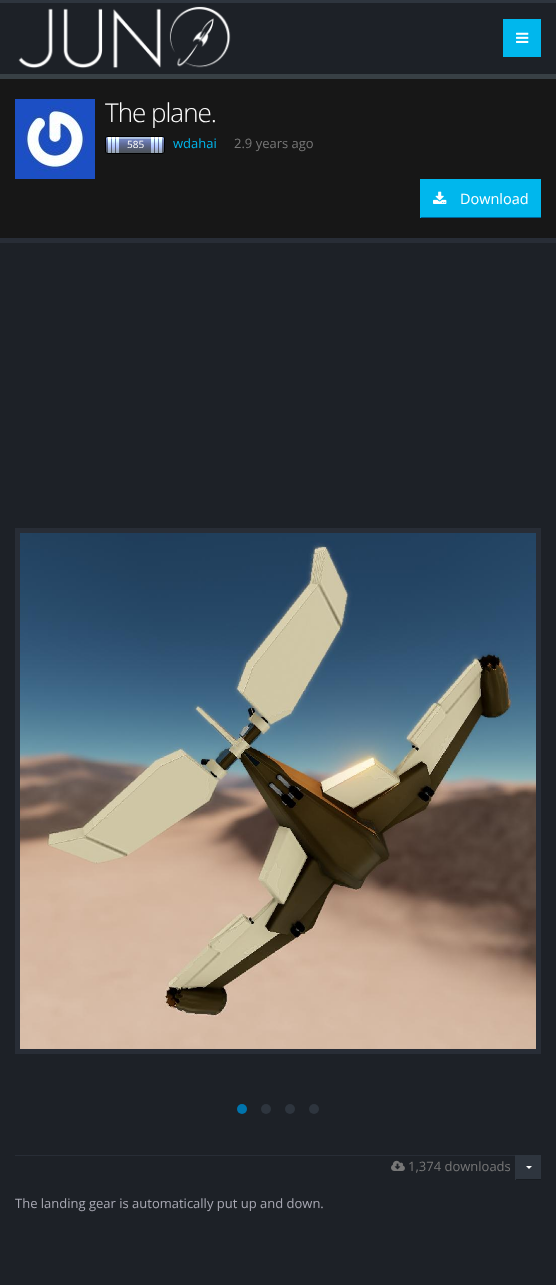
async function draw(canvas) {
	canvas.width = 556;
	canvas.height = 1285;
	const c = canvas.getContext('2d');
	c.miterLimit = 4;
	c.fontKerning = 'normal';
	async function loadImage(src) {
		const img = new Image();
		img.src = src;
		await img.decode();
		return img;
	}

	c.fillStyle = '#1d2127';
	c.fillRect(0, 0, 556, 1285);
	c.fillStyle = '#2e353e';
	c.fillRect(0, 0, 556, 3);
	c.drawImage(await loadImage('img1.png'), 18, 6, 213, 63);
	c.fillStyle = '#00b7ed';
	c.fillRect(503, 19, 38, 38);
	c.drawImage(await loadImage('img2.png'), 516, 32, 13, 11);
	for (const [x, y, w, h, color] of [
		[0, 79, 556, 159, '#171717'],
		[0, 74, 556, 5, '#384045'],
		[0, 238, 556, 5, '#282d36'],
	]) {
		c.fillStyle = color;
		c.fillRect(x, y, w, h);
	}
	c.drawImage(await loadImage('img3.png'), 15, 99, 80, 80);
	c.letterSpacing = '-1px';
	c.font = '300 26px Open Sans';
	c.fillStyle = '#fff';
	c.fillText('The plane.', 105, 122);
	c.drawImage(await loadImage('img4.png'), 105, 136, 60, 18);
	c.letterSpacing = '0px';
	c.font = '10px Open Sans';
	c.fillText('585', 127, 148);
	c.font = '13px Open Sans';
	c.fillStyle = '#00b7ed';
	c.fillText('wdahai', 173, 148);
	c.fillStyle = '#777';
	c.fillText('2.9 years ago', 234, 148);
	for (const [x, y, w, h, color] of [
		[421, 179, 120, 38, '#00b7ed'],
		[420, 217, 121, 1, '#069'],
		[420, 179, 1, 39, '#00b7ed'],
	]) {
		c.fillStyle = color;
		c.fillRect(x, y, w, h);
	}
	c.drawImage(await loadImage('img5.png'), 433, 191, 14, 13);
	c.font = '14.5px Open Sans';
	c.fillStyle = '#fff';
	c.fillText('Download', 460, 204);
	c.fillStyle = '#282d36';
	c.fillRect(15, 528, 526, 526);
	c.drawImage(await loadImage('img6.png'), 20, 533, 516, 516);
	c.fillStyle = '#0074ad';
	c.beginPath();
	c.arc(242, 1109, 5, 0, 2 * Math.PI);
	c.fill();
	c.fillStyle = '#2e353e';
	c.beginPath();
	c.arc(266, 1109, 5, 0, 2 * Math.PI);
	c.fill();
	c.beginPath();
	c.arc(290, 1109, 5, 0, 2 * Math.PI);
	c.fill();
	c.beginPath();
	c.arc(314, 1109, 5, 0, 2 * Math.PI);
	c.fill();
	c.drawImage(await loadImage('img7.png'), 391, 1160, 14, 11);
	c.font = '13px Open Sans';
	c.fillStyle = '#777';
	c.fillText('1,374 downloads', 408, 1171);
	for (const [x, y, w, h, color] of [
		[516, 1155, 25, 24, '#2e353e'],
		[515, 1179, 26, 1, '#181c21'],
		[515, 1155, 1, 25, '#2e353e'],
	]) {
		c.fillStyle = color;
		c.fillRect(x, y, w, h);
	}
	c.fillStyle = '#fff';
	c.beginPath();
	c.moveTo(526, 1166);
	c.lineTo(532, 1166);
	c.lineTo(529, 1169);
	c.closePath();
	c.fill();
	c.fillStyle = '#282d36';
	c.fillRect(15, 1155, 500, 1);
	c.fillStyle = '#a9a9b4';
	c.fillText('The landing gear is automatically put up and down.', 15, 1208);
}

draw(document.querySelector('canvas'));
